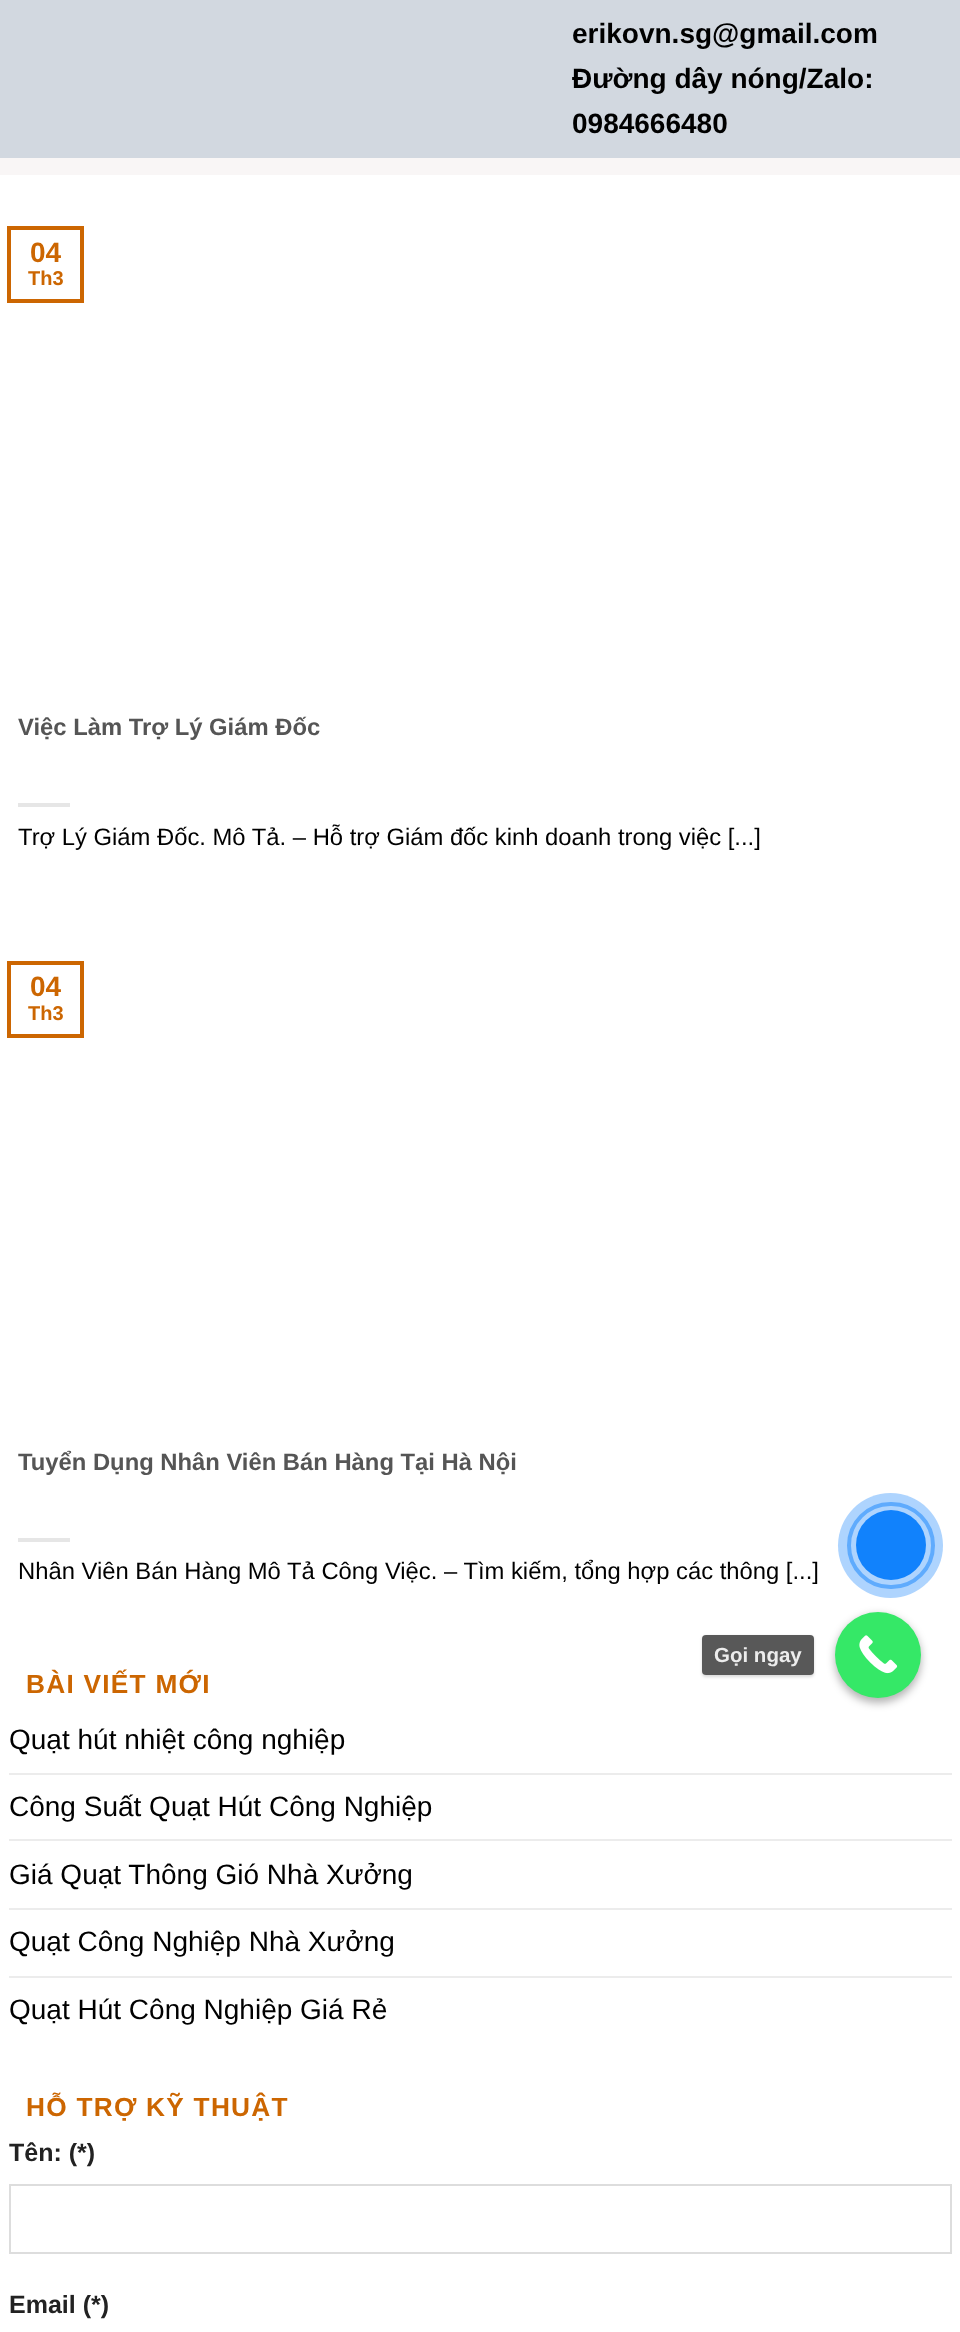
async function draw(canvas) {
	canvas.width = 960;
	canvas.height = 2332;
	const c = canvas.getContext('2d');
	c.miterLimit = 4;
	c.fontKerning = 'normal';
	async function loadImage(src) {
		const img = new Image();
		img.src = src;
		await img.decode();
		return img;
	}

	c.fillStyle = '#f9f6f6';
	c.fillRect(0, 0, 960, 2332);
	c.fillStyle = '#d2d8e0';
	c.fillRect(0, 0, 960, 158);
	c.font = 'bold 28px Liberation Sans';
	c.fillStyle = '#000';
	for (const [text, x, y] of [
		['erikovn.sg@gmail.com', 572, 43],
		['Đường dây nóng/Zalo:', 572, 88],
		['0984666480', 572, 133],
	]) {
		c.fillText(text, x, y);
	}
	c.fillStyle = '#fff';
	c.fillRect(0, 175, 960, 2157);
	c.strokeStyle = '#cc6601';
	c.lineWidth = 4;
	c.strokeRect(9, 228, 73, 73);
	c.fillStyle = '#cc6601';
	c.fillText('04', 30, 262);
	c.font = 'bold 20px Liberation Sans';
	c.fillText('Th3', 28, 285);
	c.font = 'bold 23.8px Liberation Sans';
	c.fillStyle = '#555';
	c.fillText('Việc Làm Trợ Lý Giám Đốc', 18, 735);
	c.fillStyle = '#e6e6e6';
	c.fillRect(18, 803, 52, 4);
	c.font = '23.8px Liberation Sans';
	c.fillStyle = '#000';
	c.fillText('Trợ Lý Giám Đốc. Mô Tả. – Hỗ trợ Giám đốc kinh doanh trong việc [...]', 18, 845);
	c.strokeRect(9, 963, 73, 73);
	c.font = 'bold 28px Liberation Sans';
	c.fillStyle = '#cc6601';
	c.fillText('04', 30, 996);
	c.font = 'bold 20px Liberation Sans';
	c.fillText('Th3', 28, 1020);
	c.save();
	c.beginPath();
	c.rect(18, 1447, 925, 79);
	c.clip();
	c.font = 'bold 23.8px Liberation Sans';
	c.fillStyle = '#555';
	c.fillText('Tuyển Dụng Nhân Viên Bán Hàng Tại Hà Nội', 18, 1470);
	c.restore();
	c.fillStyle = '#e6e6e6';
	c.fillRect(18, 1538, 52, 4);
	c.font = '23.8px Liberation Sans';
	c.fillStyle = '#000';
	c.fillText('Nhân Viên Bán Hàng Mô Tả Công Việc. – Tìm kiếm, tổng hợp các thông [...]', 18, 1579);
	c.letterSpacing = '1.25px';
	c.font = 'bold 26.25px Liberation Sans';
	c.fillStyle = '#cc6601';
	c.fillText('BÀI VIẾT MỚI', 26, 1693);
	c.letterSpacing = '0px';
	c.font = '28px Liberation Sans';
	c.fillStyle = '#000';
	c.fillText('Quạt hút nhiệt công nghiệp', 9, 1749);
	c.fillStyle = '#ececec';
	c.fillRect(9, 1773, 943, 2);
	c.fillStyle = '#000';
	c.fillText('Công Suất Quạt Hút Công Nghiệp', 9, 1816);
	c.fillStyle = '#ececec';
	c.fillRect(9, 1839, 943, 2);
	c.fillStyle = '#000';
	c.fillText('Giá Quạt Thông Gió Nhà Xưởng', 9, 1884);
	c.fillStyle = '#ececec';
	c.fillRect(9, 1908, 943, 2);
	c.fillStyle = '#000';
	c.fillText('Quạt Công Nghiệp Nhà Xưởng', 9, 1951);
	c.fillStyle = '#ececec';
	c.fillRect(9, 1976, 943, 2);
	c.fillStyle = '#000';
	c.fillText('Quạt Hút Công Nghiệp Giá Rẻ', 9, 2019);
	c.letterSpacing = '1.25px';
	c.font = 'bold 26.25px Liberation Sans';
	c.fillStyle = '#cc6601';
	c.fillText('HỖ TRỢ KỸ THUẬT', 26, 2116);
	c.letterSpacing = '0px';
	c.font = 'bold 25px Liberation Sans';
	c.fillStyle = '#222';
	c.fillText('Tên: (*)', 9, 2161);
	c.strokeStyle = '#ddd';
	c.lineWidth = 2;
	c.strokeRect(10, 2185, 941, 68);
	c.fillText('Email (*)', 9, 2313);
	c.beginPath();
	c.roundRect(849, 1504, 84, 83, 41.5);
	c.strokeStyle = '#88c1fe';
	c.lineWidth = 4;
	c.stroke();
	c.fillStyle = '#1182fc57';
	c.beginPath();
	c.arc(890.5, 1545.5, 52.5, 0, 2 * Math.PI);
	c.fill();
	c.fillStyle = '#1182fc';
	c.beginPath();
	c.arc(891, 1545, 35, 0, 2 * Math.PI);
	c.fill();
	c.fillStyle = '#0000004d';
	c.filter = 'blur(4.5px)';
	c.beginPath();
	c.roundRect(835, 1615, 86, 88, 43);
	c.fill();
	c.filter = 'none';
	c.fillStyle = '#35e867';
	c.beginPath();
	c.arc(878, 1655, 43, 0, 2 * Math.PI);
	c.fill();
	c.drawImage(await loadImage('img1.png'), 859, 1635, 39, 39);
	c.save();
	c.beginPath();
	c.moveTo(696, 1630);
	c.lineTo(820, 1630);
	c.lineTo(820, 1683);
	c.lineTo(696, 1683);
	c.closePath();
	c.moveTo(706, 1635);
	c.lineTo(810, 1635);
	c.bezierCurveTo(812, 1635, 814, 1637, 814, 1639);
	c.lineTo(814, 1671);
	c.bezierCurveTo(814, 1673, 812, 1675, 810, 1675);
	c.lineTo(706, 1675);
	c.bezierCurveTo(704, 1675, 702, 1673, 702, 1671);
	c.lineTo(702, 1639);
	c.bezierCurveTo(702, 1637, 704, 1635, 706, 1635);
	c.closePath();
	c.clip('evenodd');
	c.fillStyle = '#00000026';
	c.filter = 'blur(1.5px)';
	c.beginPath();
	c.roundRect(702, 1636, 112, 41, 4);
	c.fill();
	c.filter = 'none';
	c.restore();
	c.fillStyle = '#464646e6';
	c.beginPath();
	c.roundRect(702, 1635, 112, 40, 4);
	c.fill();
	c.font = 'bold 20.5px Liberation Sans';
	c.fillStyle = '#ececec';
	c.fillText('Gọi ngay', 714, 1662);
}

draw(document.querySelector('canvas'));
